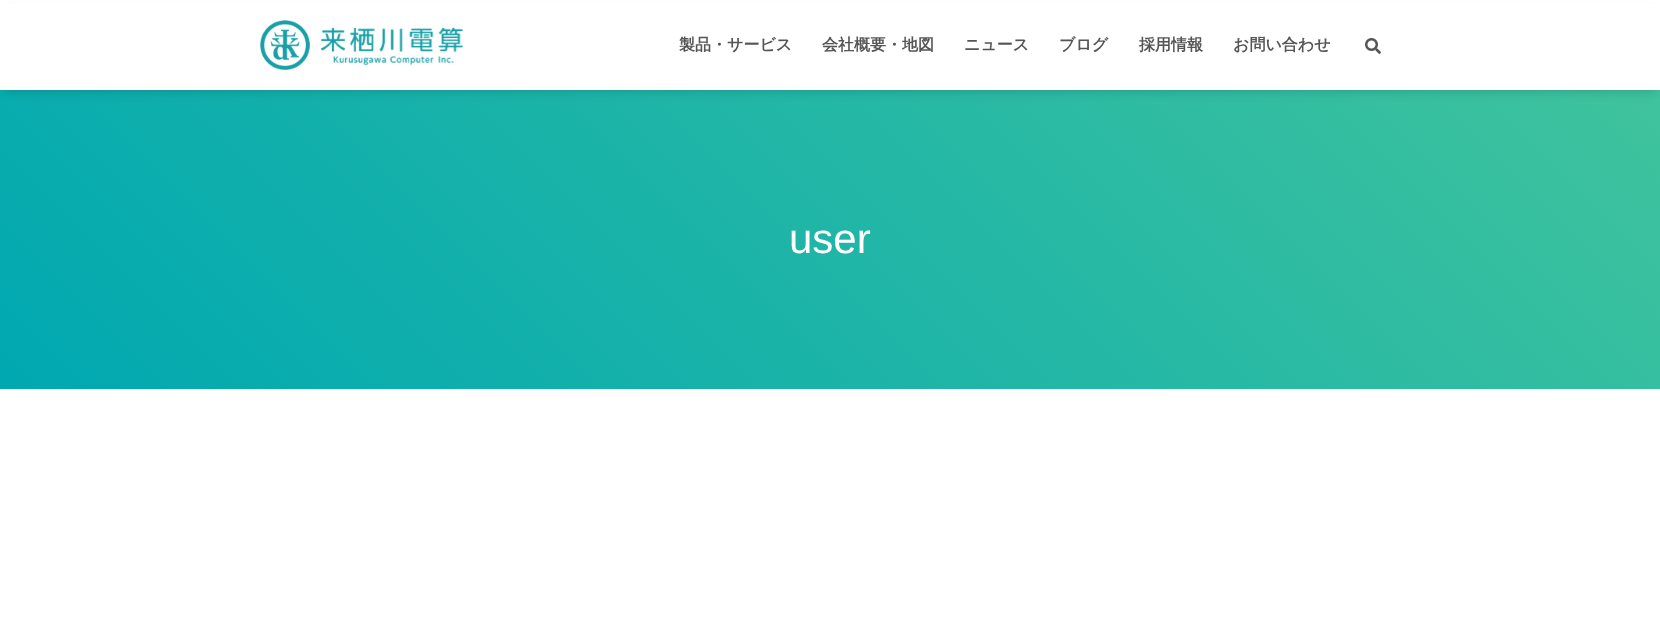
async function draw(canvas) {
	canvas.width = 1660;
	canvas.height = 619;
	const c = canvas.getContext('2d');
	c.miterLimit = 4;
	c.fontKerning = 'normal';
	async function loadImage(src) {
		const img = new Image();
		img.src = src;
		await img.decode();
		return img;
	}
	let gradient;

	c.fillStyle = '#fff';
	c.fillRect(0, 0, 1660, 619);
	gradient = c.createLinearGradient(318, 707, 1342, -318);
	gradient.addColorStop(0, '#00a8b1');
	gradient.addColorStop(1, '#42c49c');
	c.fillStyle = gradient;
	c.fillRect(0, 90, 1660, 299);
	c.fillStyle = '#00000026';
	c.filter = 'blur(5px)';
	c.beginPath();
	c.rect(4, 10, 1652, 82);
	c.fill();
	c.filter = 'none';
	c.fillStyle = '#fff';
	c.fillRect(0, 3, 1660, 87);
	c.drawImage(await loadImage('img1.png'), 260, 20, 203, 50);
	c.font = 'bold 16px WenQuanYi Zen Hei';
	c.fillStyle = '#555';
	for (const [text, x, y] of [
		['製品・サービス', 679, 50],
		['会社概要・地図', 822, 50],
		['ニュース', 964, 50],
		['ブログ', 1059, 50],
		['採用情報', 1139, 50],
		['お問い合わせ', 1233, 50],
	]) {
		c.fillText(text, x, y);
	}
	c.drawImage(await loadImage('img2.png'), 1365, 38, 16, 16);
	c.font = '42px Liberation Sans';
	c.fillStyle = '#fff';
	c.fillText('user', 789, 253);
}

draw(document.querySelector('canvas'));
